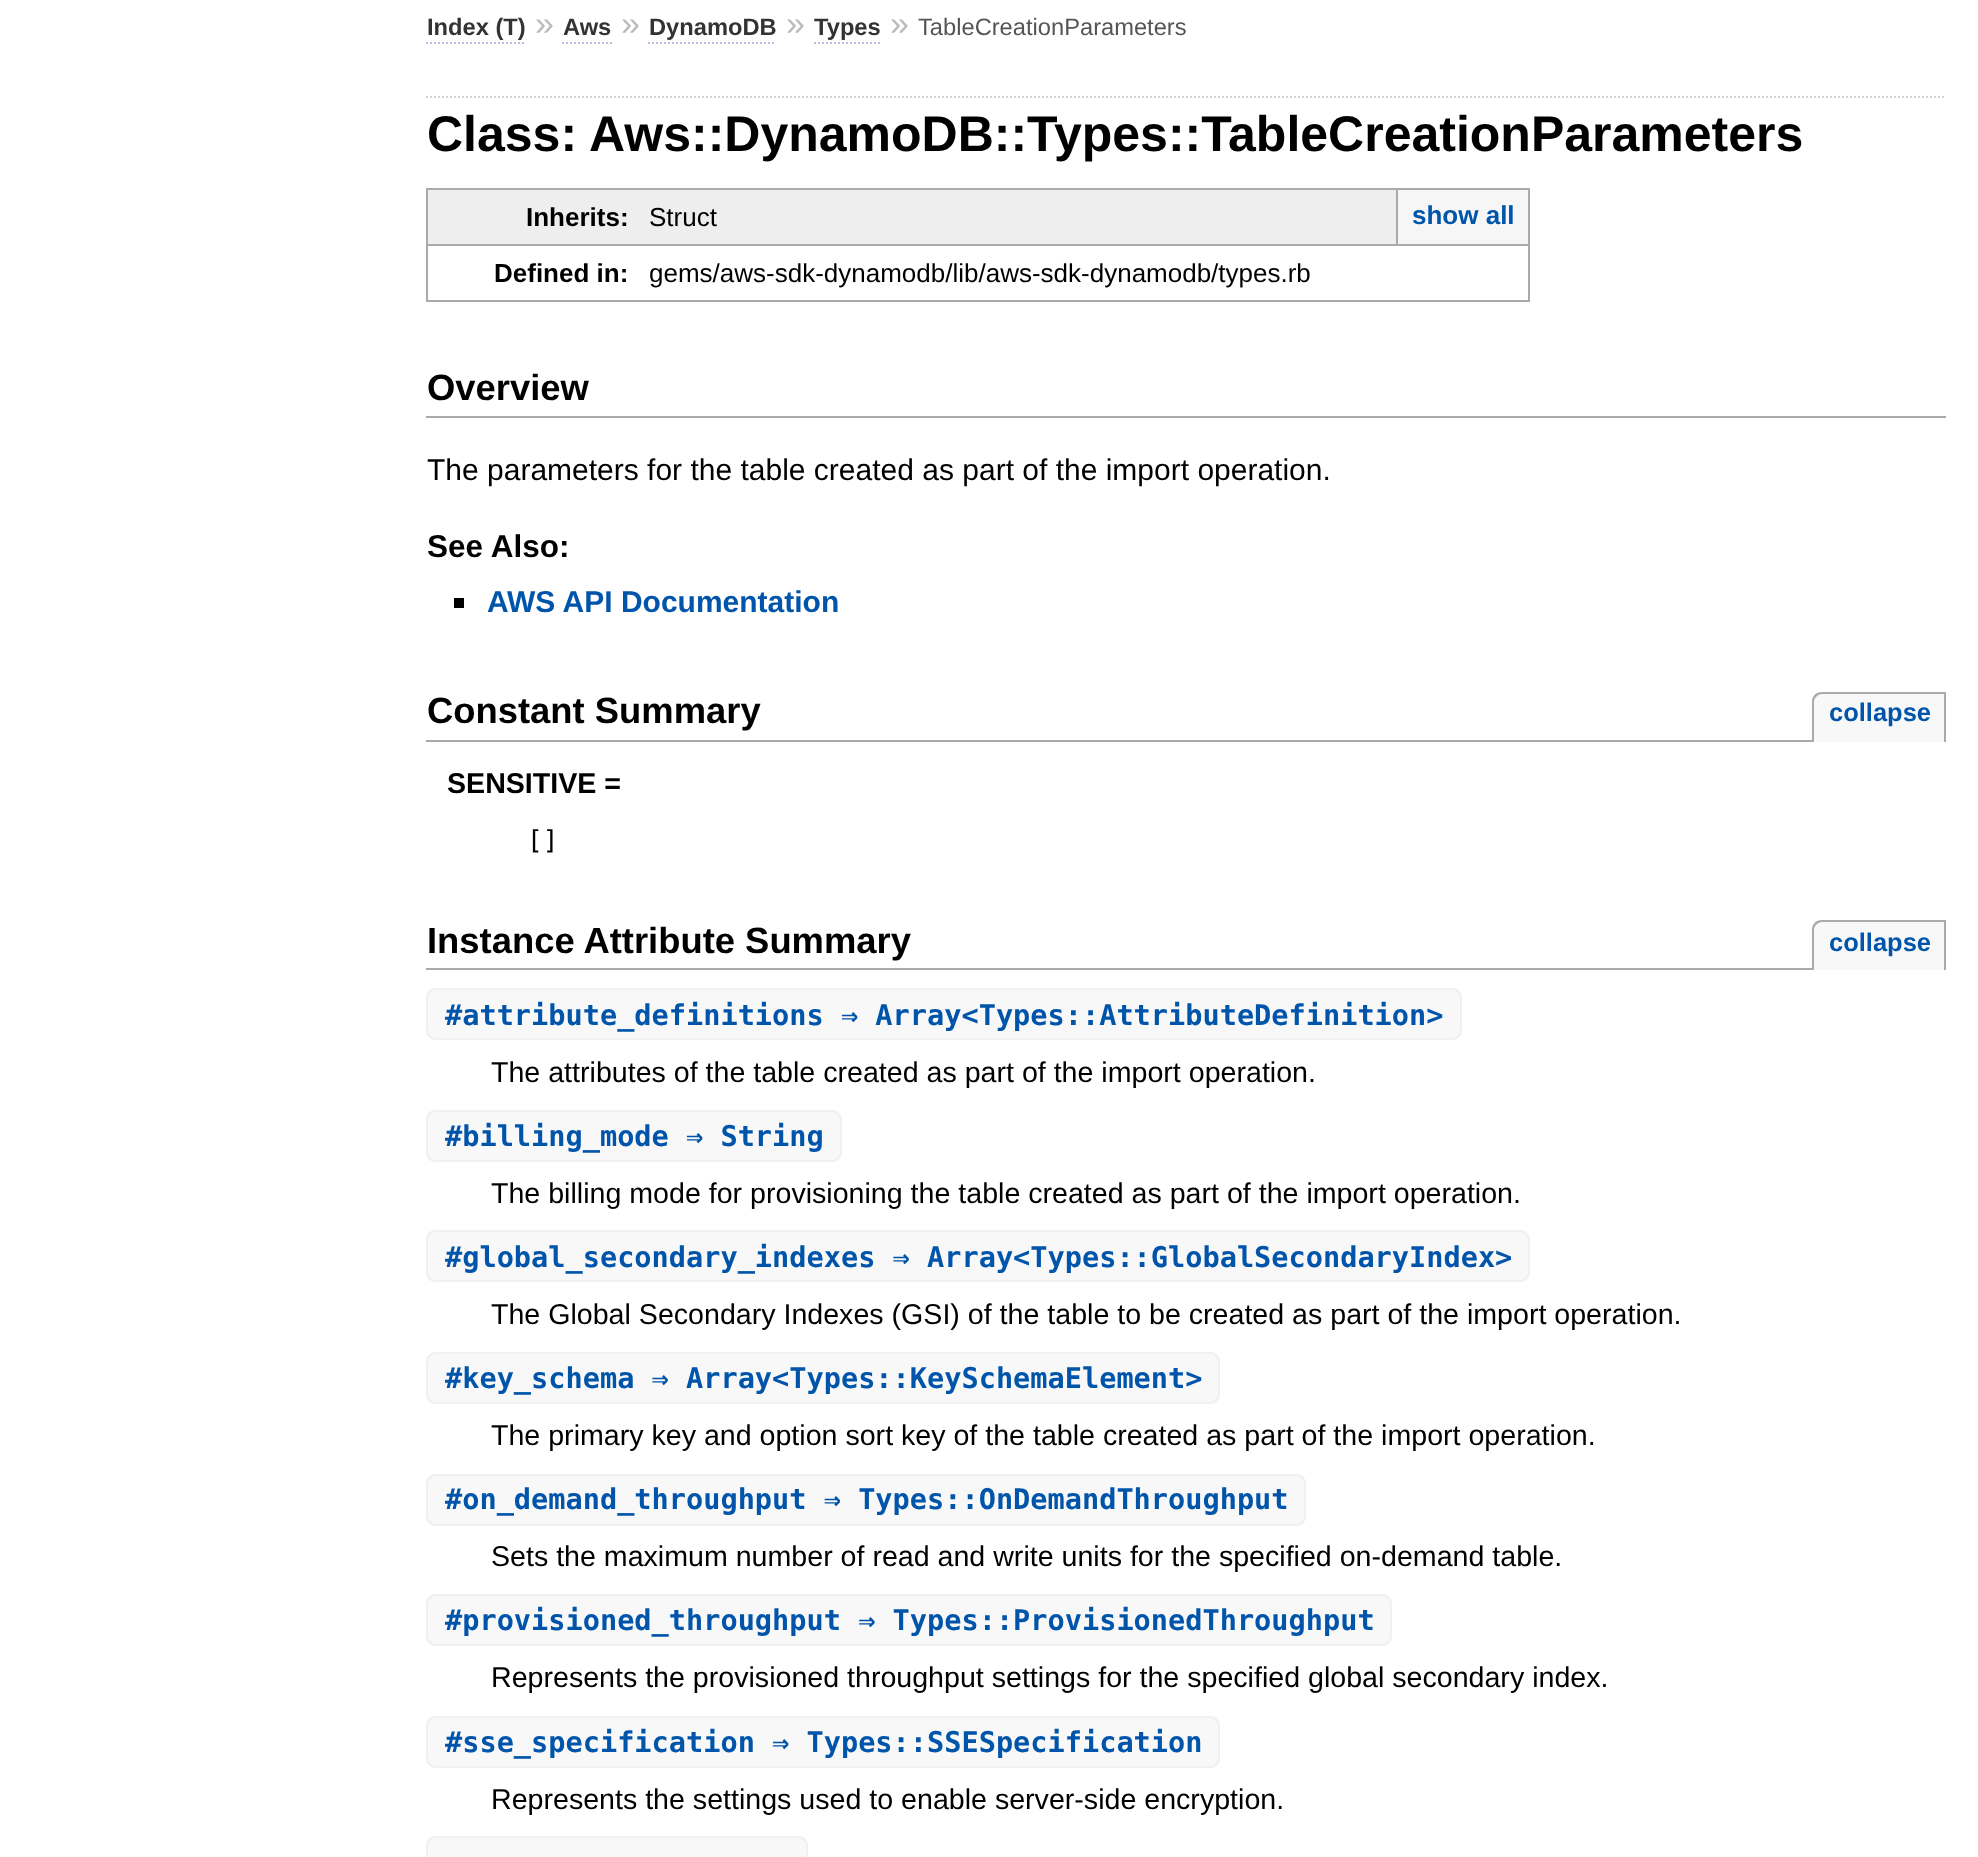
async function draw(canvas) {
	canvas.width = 1978;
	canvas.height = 1857;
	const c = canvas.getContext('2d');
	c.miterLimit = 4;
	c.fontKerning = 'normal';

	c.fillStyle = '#fff';
	c.fillRect(0, 0, 1978, 1857);
	c.font = 'bold 23.7px Liberation Sans';
	c.fillStyle = '#333';
	c.fillText('Index (T)', 427, 35);
	c.beginPath();
	c.moveTo(426, 43);
	c.lineTo(526, 43);
	c.strokeStyle = '#bbd';
	c.lineWidth = 2;
	c.setLineDash([2, 2]);
	c.stroke();
	c.font = '34px Liberation Sans';
	c.fillStyle = '#bbb';
	c.fillText('»', 535, 35);
	c.font = 'bold 23.7px Liberation Sans';
	c.fillStyle = '#333';
	c.fillText('Aws', 563, 35);
	c.beginPath();
	c.moveTo(562, 43);
	c.lineTo(612, 43);
	c.stroke();
	c.font = '34px Liberation Sans';
	c.fillStyle = '#bbb';
	c.fillText('»', 621, 35);
	c.font = 'bold 23.7px Liberation Sans';
	c.fillStyle = '#333';
	c.fillText('DynamoDB', 649, 35);
	c.beginPath();
	c.moveTo(648, 43);
	c.lineTo(776, 43);
	c.stroke();
	c.font = '34px Liberation Sans';
	c.fillStyle = '#bbb';
	c.fillText('»', 786, 35);
	c.font = 'bold 23.7px Liberation Sans';
	c.fillStyle = '#333';
	c.fillText('Types', 814, 35);
	c.beginPath();
	c.moveTo(814, 43);
	c.lineTo(880, 43);
	c.stroke();
	c.font = '34px Liberation Sans';
	c.fillStyle = '#bbb';
	c.fillText('»', 890, 35);
	c.font = '23.7px Liberation Sans';
	c.fillStyle = '#555';
	c.fillText('TableCreationParameters', 918, 35);
	c.beginPath();
	c.moveTo(426, 97);
	c.lineTo(1946, 97);
	c.strokeStyle = '#d5d5d5';
	c.stroke();
	c.font = 'bold 50px Liberation Sans';
	c.fillStyle = '#000';
	c.fillText('Class: Aws::DynamoDB::Types::TableCreationParameters', 427, 151);
	for (const [x, y, w, h, color] of [
		[428, 190, 968, 54, '#eee'],
		[426, 188, 1104, 2, '#aaa'],
		[426, 188, 2, 56, '#aaa'],
	]) {
		c.fillStyle = color;
		c.fillRect(x, y, w, h);
	}
	c.font = 'bold 26px Liberation Sans';
	c.fillStyle = '#000';
	c.fillText('Inherits:', 526, 226);
	c.fillStyle = '#aaa';
	c.fillRect(426, 244, 1104, 2);
	c.fillRect(1528, 188, 2, 114);
	c.font = '26px Liberation Sans';
	c.fillStyle = '#000';
	c.fillText('Struct', 649, 226);
	c.fillStyle = '#f6f6f6';
	c.fillRect(1398, 190, 130, 54);
	c.fillStyle = '#aaa';
	c.fillRect(1396, 190, 2, 54);
	c.font = 'bold 26px Liberation Sans';
	c.fillStyle = '#05a';
	c.fillText('show all', 1412, 224);
	c.fillStyle = '#aaa';
	c.fillRect(426, 300, 222, 2);
	c.fillRect(426, 244, 2, 58);
	c.fillStyle = '#000';
	c.fillText('Defined in:', 494, 282);
	c.fillStyle = '#aaa';
	c.fillRect(648, 300, 882, 2);
	c.font = '26px Liberation Sans';
	c.fillStyle = '#000';
	c.fillText('gems/aws-sdk-dynamodb/lib/aws-sdk-dynamodb/types.rb', 649, 282);
	c.fillStyle = '#aaa';
	c.fillRect(426, 416, 1520, 2);
	c.font = 'bold 36.4px Liberation Sans';
	c.fillStyle = '#000';
	c.fillText('Overview', 427, 400);
	c.font = '30px Liberation Sans';
	c.fillText('The parameters for the table created as part of the import operation.', 427, 480);
	c.font = 'bold 31.5px Liberation Sans';
	c.fillText('See Also:', 427, 557);
	c.fillRect(454, 598, 10, 10);
	c.font = 'bold 30px Liberation Sans';
	c.fillStyle = '#05a';
	c.fillText('AWS API Documentation', 487, 612);
	c.fillStyle = '#aaa';
	c.fillRect(426, 740, 1386, 2);
	c.font = 'bold 36.4px Liberation Sans';
	c.fillStyle = '#000';
	c.fillText('Constant Summary', 427, 723);
	c.fillStyle = '#f8f8f8';
	c.beginPath();
	c.roundRect(1812, 692, 134, 50, [10, 0, 0, 0]);
	c.fill();
	c.fillStyle = '#aaa';
	c.beginPath();
	c.moveTo(1822, 692);
	c.lineTo(1946, 692);
	c.lineTo(1946, 742);
	c.lineTo(1812, 742);
	c.lineTo(1812, 702);
	c.bezierCurveTo(1812, 696, 1816, 692, 1822, 692);
	c.closePath();
	c.moveTo(1822, 694);
	c.lineTo(1944, 694);
	c.lineTo(1944, 742);
	c.lineTo(1814, 742);
	c.lineTo(1814, 702);
	c.bezierCurveTo(1814, 698, 1818, 694, 1822, 694);
	c.closePath();
	c.fill('evenodd');
	c.font = 'bold 25.5px Liberation Sans';
	c.fillStyle = '#05a';
	c.fillText('collapse', 1829, 721);
	c.font = 'bold 28.6px Liberation Sans';
	c.fillStyle = '#000';
	c.fillText('SENSITIVE =', 447, 793);
	c.font = '26px DejaVu Sans Mono';
	c.fillText('[]', 527, 849);
	c.fillStyle = '#aaa';
	c.fillRect(426, 968, 1386, 2);
	c.font = 'bold 36.4px Liberation Sans';
	c.fillStyle = '#000';
	c.fillText('Instance Attribute Summary', 427, 953);
	c.fillStyle = '#f8f8f8';
	c.beginPath();
	c.roundRect(1812, 920, 134, 50, [10, 0, 0, 0]);
	c.fill();
	c.fillStyle = '#aaa';
	c.beginPath();
	c.moveTo(1822, 920);
	c.lineTo(1946, 920);
	c.lineTo(1946, 970);
	c.lineTo(1812, 970);
	c.lineTo(1812, 930);
	c.bezierCurveTo(1812, 924, 1816, 920, 1822, 920);
	c.closePath();
	c.moveTo(1822, 922);
	c.lineTo(1944, 922);
	c.lineTo(1944, 970);
	c.lineTo(1814, 970);
	c.lineTo(1814, 930);
	c.bezierCurveTo(1814, 926, 1818, 922, 1822, 922);
	c.closePath();
	c.fill('evenodd');
	c.font = 'bold 25.5px Liberation Sans';
	c.fillStyle = '#05a';
	c.fillText('collapse', 1829, 951);
	c.fillStyle = '#f8f8f8';
	c.beginPath();
	c.roundRect(426, 988, 36, 52, [10, 0, 0, 10]);
	c.fill();
	c.fillStyle = '#f0f0f0';
	c.beginPath();
	c.moveTo(436, 988);
	c.lineTo(462, 988);
	c.lineTo(462, 1040);
	c.lineTo(436, 1040);
	c.bezierCurveTo(430, 1040, 426, 1036, 426, 1030);
	c.lineTo(426, 998);
	c.bezierCurveTo(426, 992, 430, 988, 436, 988);
	c.closePath();
	c.moveTo(436, 990);
	c.lineTo(462, 990);
	c.lineTo(462, 1038);
	c.lineTo(436, 1038);
	c.bezierCurveTo(432, 1038, 428, 1034, 428, 1030);
	c.lineTo(428, 998);
	c.bezierCurveTo(428, 994, 432, 990, 436, 990);
	c.closePath();
	c.fill('evenodd');
	c.fillStyle = '#f8f8f8';
	c.fillRect(462, 990, 362, 48);
	c.beginPath();
	c.roundRect(824, 988, 638, 52, [0, 10, 10, 0]);
	c.fill();
	c.fillStyle = '#f0f0f0';
	c.beginPath();
	c.moveTo(824, 988);
	c.lineTo(1452, 988);
	c.bezierCurveTo(1458, 988, 1462, 992, 1462, 998);
	c.lineTo(1462, 1030);
	c.bezierCurveTo(1462, 1036, 1458, 1040, 1452, 1040);
	c.lineTo(824, 1040);
	c.closePath();
	c.moveTo(824, 990);
	c.lineTo(1452, 990);
	c.bezierCurveTo(1456, 990, 1460, 994, 1460, 998);
	c.lineTo(1460, 1030);
	c.bezierCurveTo(1460, 1034, 1456, 1038, 1452, 1038);
	c.lineTo(824, 1038);
	c.closePath();
	c.fill('evenodd');
	c.font = 'bold 28.6px DejaVu Sans Mono';
	c.fillStyle = '#05a';
	c.fillText('#attribute_definitions ⇒ Array<Types::AttributeDefinition>', 445, 1025);
	c.fillStyle = '#f0f0f0';
	c.fillRect(462, 988, 362, 2);
	c.fillRect(462, 1038, 362, 2);
	c.font = '28.6px Liberation Sans';
	c.fillStyle = '#000';
	c.fillText('The attributes of the table created as part of the import operation.', 491, 1082);
	c.fillStyle = '#f8f8f8';
	c.beginPath();
	c.roundRect(426, 1110, 36, 52, [10, 0, 0, 10]);
	c.fill();
	c.fillStyle = '#f0f0f0';
	c.beginPath();
	c.moveTo(436, 1110);
	c.lineTo(462, 1110);
	c.lineTo(462, 1162);
	c.lineTo(436, 1162);
	c.bezierCurveTo(430, 1162, 426, 1158, 426, 1152);
	c.lineTo(426, 1120);
	c.bezierCurveTo(426, 1114, 430, 1110, 436, 1110);
	c.closePath();
	c.moveTo(436, 1112);
	c.lineTo(462, 1112);
	c.lineTo(462, 1160);
	c.lineTo(436, 1160);
	c.bezierCurveTo(432, 1160, 428, 1156, 428, 1152);
	c.lineTo(428, 1120);
	c.bezierCurveTo(428, 1116, 432, 1112, 436, 1112);
	c.closePath();
	c.fill('evenodd');
	c.fillStyle = '#f8f8f8';
	c.fillRect(462, 1112, 206, 48);
	c.beginPath();
	c.roundRect(668, 1110, 174, 52, [0, 10, 10, 0]);
	c.fill();
	c.fillStyle = '#f0f0f0';
	c.beginPath();
	c.moveTo(668, 1110);
	c.lineTo(832, 1110);
	c.bezierCurveTo(838, 1110, 842, 1114, 842, 1120);
	c.lineTo(842, 1152);
	c.bezierCurveTo(842, 1158, 838, 1162, 832, 1162);
	c.lineTo(668, 1162);
	c.closePath();
	c.moveTo(668, 1112);
	c.lineTo(832, 1112);
	c.bezierCurveTo(836, 1112, 840, 1116, 840, 1120);
	c.lineTo(840, 1152);
	c.bezierCurveTo(840, 1156, 836, 1160, 832, 1160);
	c.lineTo(668, 1160);
	c.closePath();
	c.fill('evenodd');
	c.font = 'bold 28.6px DejaVu Sans Mono';
	c.fillStyle = '#05a';
	c.fillText('#billing_mode ⇒ String', 445, 1146);
	c.fillStyle = '#f0f0f0';
	c.fillRect(462, 1110, 206, 2);
	c.fillRect(462, 1160, 206, 2);
	c.font = '28.6px Liberation Sans';
	c.fillStyle = '#000';
	c.fillText('The billing mode for provisioning the table created as part of the import operation.', 491, 1203);
	c.fillStyle = '#f8f8f8';
	c.beginPath();
	c.roundRect(426, 1230, 36, 52, [10, 0, 0, 10]);
	c.fill();
	c.fillStyle = '#f0f0f0';
	c.beginPath();
	c.moveTo(436, 1230);
	c.lineTo(462, 1230);
	c.lineTo(462, 1282);
	c.lineTo(436, 1282);
	c.bezierCurveTo(430, 1282, 426, 1278, 426, 1272);
	c.lineTo(426, 1240);
	c.bezierCurveTo(426, 1234, 430, 1230, 436, 1230);
	c.closePath();
	c.moveTo(436, 1232);
	c.lineTo(462, 1232);
	c.lineTo(462, 1280);
	c.lineTo(436, 1280);
	c.bezierCurveTo(432, 1280, 428, 1276, 428, 1272);
	c.lineTo(428, 1240);
	c.bezierCurveTo(428, 1236, 432, 1232, 436, 1232);
	c.closePath();
	c.fill('evenodd');
	c.fillStyle = '#f8f8f8';
	c.fillRect(462, 1232, 414, 48);
	c.beginPath();
	c.roundRect(876, 1230, 654, 52, [0, 10, 10, 0]);
	c.fill();
	c.fillStyle = '#f0f0f0';
	c.beginPath();
	c.moveTo(876, 1230);
	c.lineTo(1520, 1230);
	c.bezierCurveTo(1526, 1230, 1530, 1234, 1530, 1240);
	c.lineTo(1530, 1272);
	c.bezierCurveTo(1530, 1278, 1526, 1282, 1520, 1282);
	c.lineTo(876, 1282);
	c.closePath();
	c.moveTo(876, 1232);
	c.lineTo(1520, 1232);
	c.bezierCurveTo(1524, 1232, 1528, 1236, 1528, 1240);
	c.lineTo(1528, 1272);
	c.bezierCurveTo(1528, 1276, 1524, 1280, 1520, 1280);
	c.lineTo(876, 1280);
	c.closePath();
	c.fill('evenodd');
	c.font = 'bold 28.6px DejaVu Sans Mono';
	c.fillStyle = '#05a';
	c.fillText('#global_secondary_indexes ⇒ Array<Types::GlobalSecondaryIndex>', 445, 1267);
	c.fillStyle = '#f0f0f0';
	c.fillRect(462, 1230, 414, 2);
	c.fillRect(462, 1280, 414, 2);
	c.font = '28.6px Liberation Sans';
	c.fillStyle = '#000';
	c.fillText('The Global Secondary Indexes (GSI) of the table to be created as part of the import operation.', 491, 1324);
	c.fillStyle = '#f8f8f8';
	c.beginPath();
	c.roundRect(426, 1352, 36, 52, [10, 0, 0, 10]);
	c.fill();
	c.fillStyle = '#f0f0f0';
	c.beginPath();
	c.moveTo(436, 1352);
	c.lineTo(462, 1352);
	c.lineTo(462, 1404);
	c.lineTo(436, 1404);
	c.bezierCurveTo(430, 1404, 426, 1400, 426, 1394);
	c.lineTo(426, 1362);
	c.bezierCurveTo(426, 1356, 430, 1352, 436, 1352);
	c.closePath();
	c.moveTo(436, 1354);
	c.lineTo(462, 1354);
	c.lineTo(462, 1402);
	c.lineTo(436, 1402);
	c.bezierCurveTo(432, 1402, 428, 1398, 428, 1394);
	c.lineTo(428, 1362);
	c.bezierCurveTo(428, 1358, 432, 1354, 436, 1354);
	c.closePath();
	c.fill('evenodd');
	c.fillStyle = '#f8f8f8';
	c.fillRect(462, 1354, 172, 48);
	c.beginPath();
	c.roundRect(634, 1352, 586, 52, [0, 10, 10, 0]);
	c.fill();
	c.fillStyle = '#f0f0f0';
	c.beginPath();
	c.moveTo(634, 1352);
	c.lineTo(1210, 1352);
	c.bezierCurveTo(1216, 1352, 1220, 1356, 1220, 1362);
	c.lineTo(1220, 1394);
	c.bezierCurveTo(1220, 1400, 1216, 1404, 1210, 1404);
	c.lineTo(634, 1404);
	c.closePath();
	c.moveTo(634, 1354);
	c.lineTo(1210, 1354);
	c.bezierCurveTo(1214, 1354, 1218, 1358, 1218, 1362);
	c.lineTo(1218, 1394);
	c.bezierCurveTo(1218, 1398, 1214, 1402, 1210, 1402);
	c.lineTo(634, 1402);
	c.closePath();
	c.fill('evenodd');
	c.font = 'bold 28.6px DejaVu Sans Mono';
	c.fillStyle = '#05a';
	c.fillText('#key_schema ⇒ Array<Types::KeySchemaElement>', 445, 1388);
	c.fillStyle = '#f0f0f0';
	c.fillRect(462, 1352, 172, 2);
	c.fillRect(462, 1402, 172, 2);
	c.font = '28.6px Liberation Sans';
	c.fillStyle = '#000';
	c.fillText('The primary key and option sort key of the table created as part of the import operation.', 491, 1445);
	c.fillStyle = '#f8f8f8';
	c.beginPath();
	c.roundRect(426, 1474, 36, 52, [10, 0, 0, 10]);
	c.fill();
	c.fillStyle = '#f0f0f0';
	c.beginPath();
	c.moveTo(436, 1474);
	c.lineTo(462, 1474);
	c.lineTo(462, 1526);
	c.lineTo(436, 1526);
	c.bezierCurveTo(430, 1526, 426, 1522, 426, 1516);
	c.lineTo(426, 1484);
	c.bezierCurveTo(426, 1478, 430, 1474, 436, 1474);
	c.closePath();
	c.moveTo(436, 1476);
	c.lineTo(462, 1476);
	c.lineTo(462, 1524);
	c.lineTo(436, 1524);
	c.bezierCurveTo(432, 1524, 428, 1520, 428, 1516);
	c.lineTo(428, 1484);
	c.bezierCurveTo(428, 1480, 432, 1476, 436, 1476);
	c.closePath();
	c.fill('evenodd');
	c.fillStyle = '#f8f8f8';
	c.fillRect(462, 1476, 344, 48);
	c.beginPath();
	c.roundRect(806, 1474, 500, 52, [0, 10, 10, 0]);
	c.fill();
	c.fillStyle = '#f0f0f0';
	c.beginPath();
	c.moveTo(806, 1474);
	c.lineTo(1296, 1474);
	c.bezierCurveTo(1302, 1474, 1306, 1478, 1306, 1484);
	c.lineTo(1306, 1516);
	c.bezierCurveTo(1306, 1522, 1302, 1526, 1296, 1526);
	c.lineTo(806, 1526);
	c.closePath();
	c.moveTo(806, 1476);
	c.lineTo(1296, 1476);
	c.bezierCurveTo(1300, 1476, 1304, 1480, 1304, 1484);
	c.lineTo(1304, 1516);
	c.bezierCurveTo(1304, 1520, 1300, 1524, 1296, 1524);
	c.lineTo(806, 1524);
	c.closePath();
	c.fill('evenodd');
	c.font = 'bold 28.6px DejaVu Sans Mono';
	c.fillStyle = '#05a';
	c.fillText('#on_demand_throughput ⇒ Types::OnDemandThroughput', 445, 1509);
	c.fillStyle = '#f0f0f0';
	c.fillRect(462, 1474, 344, 2);
	c.fillRect(462, 1524, 344, 2);
	c.font = '28.6px Liberation Sans';
	c.fillStyle = '#000';
	c.fillText('Sets the maximum number of read and write units for the specified on-demand table.', 491, 1566);
	c.fillStyle = '#f8f8f8';
	c.beginPath();
	c.roundRect(426, 1594, 36, 52, [10, 0, 0, 10]);
	c.fill();
	c.fillStyle = '#f0f0f0';
	c.beginPath();
	c.moveTo(436, 1594);
	c.lineTo(462, 1594);
	c.lineTo(462, 1646);
	c.lineTo(436, 1646);
	c.bezierCurveTo(430, 1646, 426, 1642, 426, 1636);
	c.lineTo(426, 1604);
	c.bezierCurveTo(426, 1598, 430, 1594, 436, 1594);
	c.closePath();
	c.moveTo(436, 1596);
	c.lineTo(462, 1596);
	c.lineTo(462, 1644);
	c.lineTo(436, 1644);
	c.bezierCurveTo(432, 1644, 428, 1640, 428, 1636);
	c.lineTo(428, 1604);
	c.bezierCurveTo(428, 1600, 432, 1596, 436, 1596);
	c.closePath();
	c.fill('evenodd');
	c.fillStyle = '#f8f8f8';
	c.fillRect(462, 1596, 378, 48);
	c.beginPath();
	c.roundRect(840, 1594, 552, 52, [0, 10, 10, 0]);
	c.fill();
	c.fillStyle = '#f0f0f0';
	c.beginPath();
	c.moveTo(840, 1594);
	c.lineTo(1382, 1594);
	c.bezierCurveTo(1388, 1594, 1392, 1598, 1392, 1604);
	c.lineTo(1392, 1636);
	c.bezierCurveTo(1392, 1642, 1388, 1646, 1382, 1646);
	c.lineTo(840, 1646);
	c.closePath();
	c.moveTo(840, 1596);
	c.lineTo(1382, 1596);
	c.bezierCurveTo(1386, 1596, 1390, 1600, 1390, 1604);
	c.lineTo(1390, 1636);
	c.bezierCurveTo(1390, 1640, 1386, 1644, 1382, 1644);
	c.lineTo(840, 1644);
	c.closePath();
	c.fill('evenodd');
	c.font = 'bold 28.6px DejaVu Sans Mono';
	c.fillStyle = '#05a';
	c.fillText('#provisioned_throughput ⇒ Types::ProvisionedThroughput', 445, 1630);
	c.fillStyle = '#f0f0f0';
	c.fillRect(462, 1594, 378, 2);
	c.fillRect(462, 1644, 378, 2);
	c.font = '28.6px Liberation Sans';
	c.fillStyle = '#000';
	c.fillText('Represents the provisioned throughput settings for the specified global secondary index.', 491, 1687);
	c.fillStyle = '#f8f8f8';
	c.beginPath();
	c.roundRect(426, 1716, 36, 52, [10, 0, 0, 10]);
	c.fill();
	c.fillStyle = '#f0f0f0';
	c.beginPath();
	c.moveTo(436, 1716);
	c.lineTo(462, 1716);
	c.lineTo(462, 1768);
	c.lineTo(436, 1768);
	c.bezierCurveTo(430, 1768, 426, 1764, 426, 1758);
	c.lineTo(426, 1726);
	c.bezierCurveTo(426, 1720, 430, 1716, 436, 1716);
	c.closePath();
	c.moveTo(436, 1718);
	c.lineTo(462, 1718);
	c.lineTo(462, 1766);
	c.lineTo(436, 1766);
	c.bezierCurveTo(432, 1766, 428, 1762, 428, 1758);
	c.lineTo(428, 1726);
	c.bezierCurveTo(428, 1722, 432, 1718, 436, 1718);
	c.closePath();
	c.fill('evenodd');
	c.fillStyle = '#f8f8f8';
	c.fillRect(462, 1718, 292, 48);
	c.beginPath();
	c.roundRect(754, 1716, 466, 52, [0, 10, 10, 0]);
	c.fill();
	c.fillStyle = '#f0f0f0';
	c.beginPath();
	c.moveTo(754, 1716);
	c.lineTo(1210, 1716);
	c.bezierCurveTo(1216, 1716, 1220, 1720, 1220, 1726);
	c.lineTo(1220, 1758);
	c.bezierCurveTo(1220, 1764, 1216, 1768, 1210, 1768);
	c.lineTo(754, 1768);
	c.closePath();
	c.moveTo(754, 1718);
	c.lineTo(1210, 1718);
	c.bezierCurveTo(1214, 1718, 1218, 1722, 1218, 1726);
	c.lineTo(1218, 1758);
	c.bezierCurveTo(1218, 1762, 1214, 1766, 1210, 1766);
	c.lineTo(754, 1766);
	c.closePath();
	c.fill('evenodd');
	c.font = 'bold 28.6px DejaVu Sans Mono';
	c.fillStyle = '#05a';
	c.fillText('#sse_specification ⇒ Types::SSESpecification', 445, 1752);
	c.fillStyle = '#f0f0f0';
	c.fillRect(462, 1716, 292, 2);
	c.fillRect(462, 1766, 292, 2);
	c.font = '28.6px Liberation Sans';
	c.fillStyle = '#000';
	c.fillText('Represents the settings used to enable server-side encryption.', 491, 1809);
	c.fillStyle = '#f8f8f8';
	c.beginPath();
	c.moveTo(436, 1836);
	c.lineTo(462, 1836);
	c.lineTo(462, 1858);
	c.lineTo(426, 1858);
	c.lineTo(426, 1846);
	c.bezierCurveTo(426, 1840.5, 430.5, 1836, 436, 1836);
	c.closePath();
	c.fill();
	c.fillStyle = '#f0f0f0';
	c.beginPath();
	c.moveTo(436, 1836);
	c.lineTo(462, 1836);
	c.lineTo(462, 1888);
	c.lineTo(436, 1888);
	c.bezierCurveTo(430, 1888, 426, 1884, 426, 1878);
	c.lineTo(426, 1846);
	c.bezierCurveTo(426, 1840, 430, 1836, 436, 1836);
	c.closePath();
	c.moveTo(436, 1838);
	c.lineTo(462, 1838);
	c.lineTo(462, 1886);
	c.lineTo(436, 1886);
	c.bezierCurveTo(432, 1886, 428, 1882, 428, 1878);
	c.lineTo(428, 1846);
	c.bezierCurveTo(428, 1842, 432, 1838, 436, 1838);
	c.closePath();
	c.fill('evenodd');
	c.fillRect(462, 1836, 172, 2);
	c.fillStyle = '#f8f8f8';
	c.beginPath();
	c.moveTo(634, 1836);
	c.lineTo(798, 1836);
	c.bezierCurveTo(803.5, 1836, 808, 1840.5, 808, 1846);
	c.lineTo(808, 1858);
	c.lineTo(634, 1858);
	c.closePath();
	c.fill();
	c.fillRect(462, 1838, 172, 19);
	c.fillStyle = '#f0f0f0';
	c.beginPath();
	c.moveTo(634, 1836);
	c.lineTo(798, 1836);
	c.bezierCurveTo(804, 1836, 808, 1840, 808, 1846);
	c.lineTo(808, 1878);
	c.bezierCurveTo(808, 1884, 804, 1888, 798, 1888);
	c.lineTo(634, 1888);
	c.closePath();
	c.moveTo(634, 1838);
	c.lineTo(798, 1838);
	c.bezierCurveTo(802, 1838, 806, 1842, 806, 1846);
	c.lineTo(806, 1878);
	c.bezierCurveTo(806, 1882, 802, 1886, 798, 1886);
	c.lineTo(634, 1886);
	c.closePath();
	c.fill('evenodd');
}

draw(document.querySelector('canvas'));
